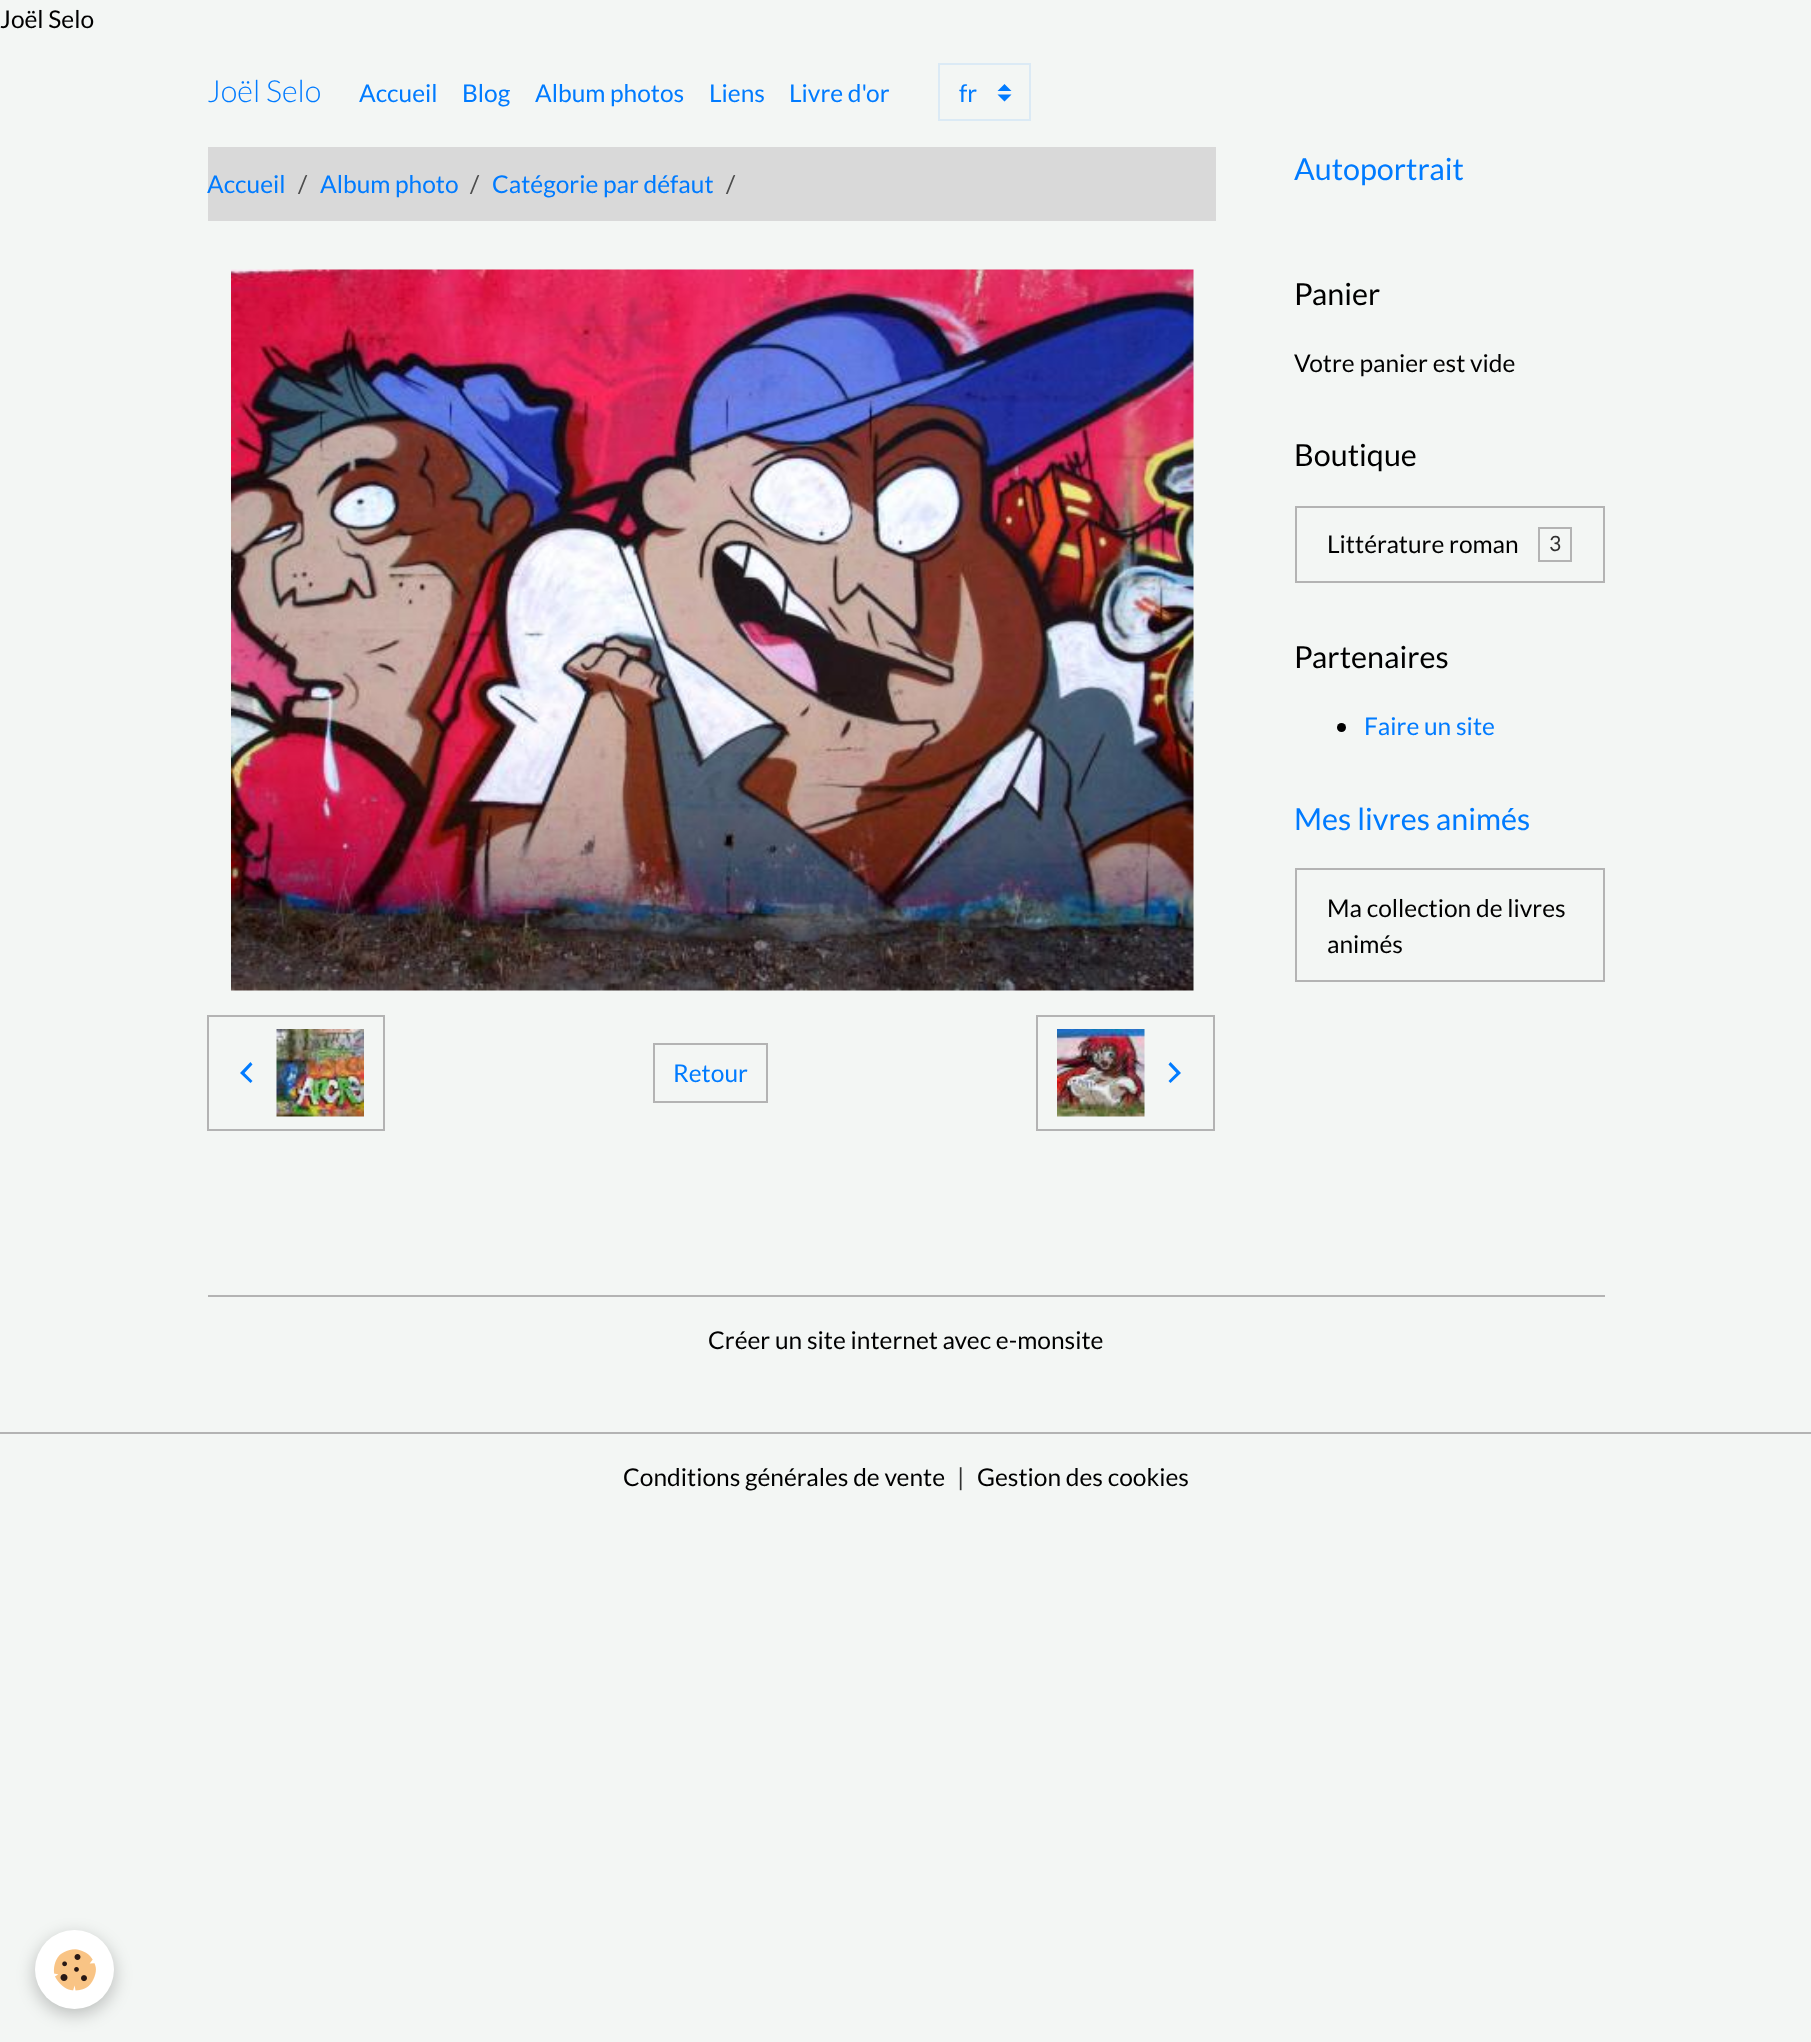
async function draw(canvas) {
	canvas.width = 1811;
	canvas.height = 2042;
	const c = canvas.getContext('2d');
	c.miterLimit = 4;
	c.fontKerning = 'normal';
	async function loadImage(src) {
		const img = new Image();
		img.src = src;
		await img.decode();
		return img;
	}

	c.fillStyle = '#f3f6f4';
	c.fillRect(0, 0, 1811, 2042);
	c.font = '24.5px Lato';
	c.fillStyle = '#000';
	c.fillText('Joël Selo', 0, 28);
	c.font = '300 30.5px Lato';
	c.fillStyle = '#007bff';
	c.fillText('Joël Selo', 207, 102);
	c.font = '24.5px Lato';
	for (const [text, x, y] of [
		['Accueil', 359, 102],
		['Blog', 462, 102],
		['Album photos', 535, 102],
		['Liens', 709, 102],
		['Livre d\'or', 789, 102],
	]) {
		c.fillText(text, x, y);
	}
	c.beginPath();
	c.moveTo(1004.5, 84);
	c.lineTo(997.5, 91);
	c.lineTo(1011.5, 91);
	c.closePath();
	c.moveTo(1004.5, 101.5);
	c.lineTo(997.5, 94.5);
	c.lineTo(1011.5, 94.5);
	c.closePath();
	c.fill();
	c.strokeStyle = '#dbeaf5';
	c.lineWidth = 2;
	c.strokeRect(939, 64, 91, 56);
	c.fillText('fr', 959, 102);
	c.fillStyle = '#d9d9d9';
	c.fillRect(208, 147, 1008, 74);
	c.fillStyle = '#007bff';
	c.fillText('Accueil', 207, 193);
	c.fillStyle = '#4d4d4d';
	c.fillText('/', 298, 193);
	c.fillStyle = '#007bff';
	c.fillText('Album photo', 320, 193);
	c.fillStyle = '#4d4d4d';
	c.fillText('/', 470, 193);
	c.fillStyle = '#007bff';
	c.fillText('Catégorie par défaut', 492, 193);
	c.fillStyle = '#4d4d4d';
	c.fillText('/', 726, 193);
	c.drawImage(await loadImage('img1.png'), 231, 269, 963, 722);
	c.strokeStyle = '#b3b3b3';
	c.strokeRect(208, 1016, 176, 114);
	c.fillStyle = '#007bff';
	c.beginPath();
	c.moveTo(252.5, 1064.5);
	c.lineTo(244.5, 1073);
	c.lineTo(252.5, 1081);
	c.lineTo(250.5, 1083);
	c.lineTo(240, 1073);
	c.lineTo(250.5, 1062);
	c.closePath();
	c.fill();
	c.drawImage(await loadImage('img2.png'), 276, 1029, 88, 88);
	c.strokeRect(654, 1044, 113, 58);
	c.fillText('Retour', 673, 1082);
	c.strokeRect(1037, 1016, 177, 114);
	c.drawImage(await loadImage('img3.png'), 1057, 1029, 88, 88);
	c.beginPath();
	c.moveTo(1170.5, 1062);
	c.lineTo(1181, 1073);
	c.lineTo(1170.5, 1083);
	c.lineTo(1168.5, 1081);
	c.lineTo(1176.5, 1073);
	c.lineTo(1168.5, 1064.5);
	c.closePath();
	c.fill();
	c.font = '30.5px Lato';
	c.fillText('Autoportrait', 1294, 180);
	c.fillStyle = '#000';
	c.fillText('Panier', 1294, 305);
	c.font = '24.5px Lato';
	c.fillText('Votre panier est vide', 1294, 372);
	c.font = '30.5px Lato';
	c.fillText('Boutique', 1294, 466);
	c.strokeRect(1296, 507, 308, 75);
	c.font = '24.5px Lato';
	c.fillText('Littérature roman', 1327, 553);
	c.strokeRect(1539, 528, 32, 33);
	c.font = '21px Lato';
	c.fillStyle = '#313131';
	c.fillText('3', 1549, 551);
	c.font = '30.5px Lato';
	c.fillStyle = '#000';
	c.fillText('Partenaires', 1294, 668);
	c.beginPath();
	c.arc(1341.5, 727.5, 4.5, 0, 2 * Math.PI);
	c.fill();
	c.font = '24.5px Lato';
	c.fillStyle = '#007bff';
	c.fillText('Faire un site', 1364, 735);
	c.font = '30.5px Lato';
	c.fillText('Mes livres animés', 1294, 830);
	c.strokeRect(1296, 869, 308, 112);
	c.font = '24.5px Lato';
	c.fillStyle = '#000';
	c.fillText('Ma collection de livres', 1327, 917);
	c.fillText('animés', 1327, 953);
	c.fillStyle = '#b3b3b3';
	c.fillRect(208, 1295, 1397, 2);
	c.fillStyle = '#000';
	c.fillText('Créer un site internet avec e-monsite', 708, 1349);
	c.fillStyle = '#b3b3b3';
	c.fillRect(0, 1432, 1811, 2);
	c.fillStyle = '#000';
	c.fillText('Conditions générales de vente', 623, 1486);
	c.fillStyle = '#313131';
	c.fillText('|', 957, 1486);
	c.fillStyle = '#000';
	c.fillText('Gestion des cookies', 977, 1486);
	c.fillStyle = '#0000003d';
	c.filter = 'blur(9px)';
	c.beginPath();
	c.roundRect(35, 1936, 79, 78, 39);
	c.fill();
	c.filter = 'none';
	c.fillStyle = '#fff';
	c.beginPath();
	c.arc(74.5, 1969.5, 39.5, 0, 2 * Math.PI);
	c.fill();
	c.drawImage(await loadImage('img4.png'), 53, 1949, 43, 42);
}

draw(document.querySelector('canvas'));
